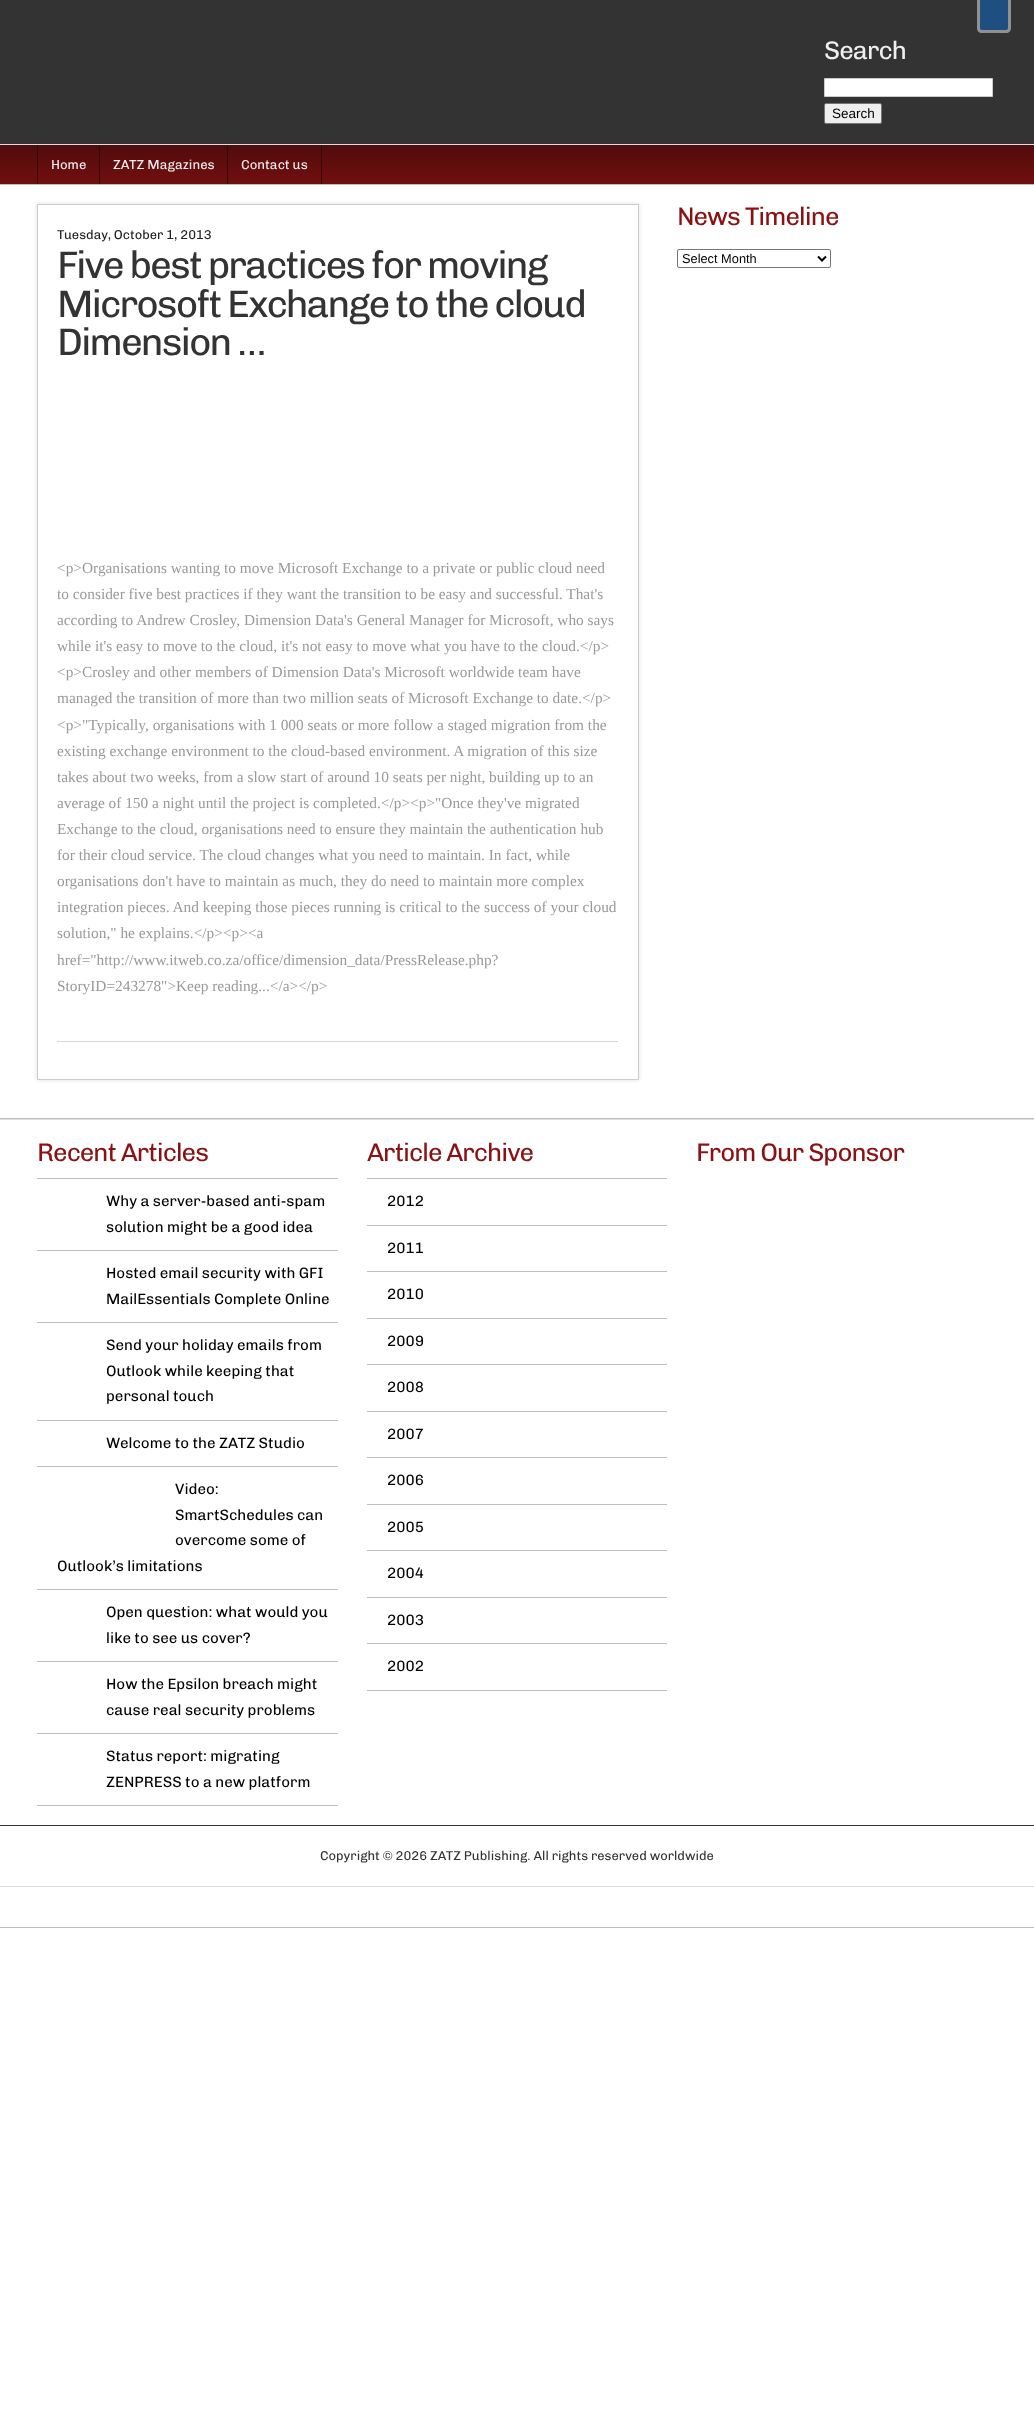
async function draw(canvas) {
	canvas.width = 1034;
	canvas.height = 2418;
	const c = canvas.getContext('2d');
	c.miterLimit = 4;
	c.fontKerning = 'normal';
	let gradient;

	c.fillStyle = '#fff';
	c.fillRect(0, 0, 1034, 2418);
	c.fillStyle = '#333';
	c.fillRect(0, 0, 1034, 144);
	c.fillStyle = '#1e4f80';
	c.beginPath();
	c.roundRect(977, 0, 34, 33, [0, 0, 5, 5]);
	c.fill();
	c.fillStyle = '#919191';
	c.beginPath();
	c.moveTo(977, 0);
	c.lineTo(1011, 0);
	c.lineTo(1011, 28);
	c.bezierCurveTo(1011, 31, 1009, 33, 1006, 33);
	c.lineTo(982, 33);
	c.bezierCurveTo(979, 33, 977, 31, 977, 28);
	c.closePath();
	c.moveTo(980, 0);
	c.lineTo(1008, 0);
	c.lineTo(1008, 28);
	c.bezierCurveTo(1008, 29, 1007, 30, 1006, 30);
	c.lineTo(982, 30);
	c.bezierCurveTo(981, 30, 980, 29, 980, 28);
	c.closePath();
	c.fill('evenodd');
	c.letterSpacing = '-1px';
	c.font = '25.5px Chivo';
	c.fillStyle = '#efefef';
	c.fillText('Search', 824, 59);
	c.fillStyle = '#fff';
	c.beginPath();
	c.rect(824.5, 78.5, 168, 18);
	c.fill();
	c.strokeStyle = '#cbcbcb';
	c.stroke();
	c.fillStyle = '#efefef';
	c.beginPath();
	c.roundRect(824.5, 103.5, 57, 20, 1.5);
	c.fill();
	c.strokeStyle = '#767676';
	c.stroke();
	c.letterSpacing = '0px';
	c.font = '13.5px Liberation Sans';
	c.fillStyle = '#000';
	c.fillText('Search', 832, 118);
	gradient = c.createLinearGradient(517, 145, 517, 184);
	gradient.addColorStop(0, '#510b0b');
	gradient.addColorStop(1, '#720f10');
	c.fillStyle = gradient;
	c.fillRect(0, 145, 1034, 39);
	for (const [x, y, w, h, color] of [
		[0, 144, 1034, 1, '#dedede'],
		[0, 184, 1034, 1, '#bcbcbc'],
		[37, 145, 1, 39, '#3a0808'],
		[99, 145, 1, 39, '#3a0808'],
	]) {
		c.fillStyle = color;
		c.fillRect(x, y, w, h);
	}
	c.font = '13px Chivo';
	c.fillStyle = '#efefef';
	c.fillText('Home', 51, 169);
	c.fillStyle = '#3a0808';
	c.fillRect(227, 145, 1, 39);
	c.fillStyle = '#efefef';
	c.fillText('ZATZ Magazines', 113, 169);
	c.fillStyle = '#3a0808';
	c.fillRect(321, 145, 1, 39);
	c.fillStyle = '#efefef';
	c.fillText('Contact us', 241, 169);
	c.fillStyle = '#bcbcbc';
	c.fillRect(0, 1118, 1034, 1);
	c.save();
	c.beginPath();
	c.moveTo(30, 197);
	c.lineTo(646, 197);
	c.lineTo(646, 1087);
	c.lineTo(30, 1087);
	c.closePath();
	c.moveTo(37, 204);
	c.lineTo(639, 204);
	c.lineTo(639, 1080);
	c.lineTo(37, 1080);
	c.closePath();
	c.clip('evenodd');
	c.fillStyle = '#dedede';
	c.filter = 'blur(2px)';
	c.beginPath();
	c.rect(37, 204, 602, 876);
	c.fill();
	c.filter = 'none';
	c.restore();
	c.strokeStyle = '#ccc';
	c.strokeRect(37.5, 204.5, 601, 875);
	c.font = '12.8px Chivo';
	c.fillStyle = '#222';
	c.fillText('Tuesday, October 1, 2013', 57, 239);
	c.letterSpacing = '-2px';
	c.font = '38.4px Chivo';
	c.fillStyle = '#333';
	for (const [text, x, y] of [
		['Five best practices for moving', 57, 278],
		['Microsoft Exchange to the cloud', 57, 317],
		['Dimension …', 57, 355],
	]) {
		c.fillText(text, x, y);
	}
	c.letterSpacing = '0px';
	c.font = '15.35px Liberation Serif';
	c.fillStyle = '#999';
	for (const [text, x, y] of [
		['<p>Organisations wanting to move Microsoft Exchange to a private or public cloud need', 57, 573],
		['to consider five best practices if they want the transition to be easy and successful. That\'s', 57, 599],
		['according to Andrew Crosley, Dimension Data\'s General Manager for Microsoft, who says', 57, 625],
		['while it\'s easy to move to the cloud, it\'s not easy to move what you have to the cloud.<\/p>', 57, 651],
		['<p>Crosley and other members of Dimension Data\'s Microsoft worldwide team have', 57, 677],
		['managed the transition of more than two million seats of Microsoft Exchange to date.<\/p>', 57, 703],
		['<p>"Typically, organisations with 1 000 seats or more follow a staged migration from the', 57, 730],
		['existing exchange environment to the cloud-based environment. A migration of this size', 57, 756],
		['takes about two weeks, from a slow start of around 10 seats per night, building up to an', 57, 782],
		['average of 150 a night until the project is completed.<\/p><p>"Once they\'ve migrated', 57, 808],
		['Exchange to the cloud, organisations need to ensure they maintain the authentication hub', 57, 834],
		['for their cloud service. The cloud changes what you need to maintain. In fact, while', 57, 860],
		['organisations don\'t have to maintain as much, they do need to maintain more complex', 57, 886],
		['integration pieces. And keeping those pieces running is critical to the success of your cloud', 57, 912],
		['solution," he explains.<\/p><p><a', 57, 938],
		['href="http://www.itweb.co.za/office/dimension_data/PressRelease.php?', 57, 965],
		['StoryID=243278">Keep reading...<\/a><\/p>', 57, 991],
	]) {
		c.fillText(text, x, y);
	}
	c.fillStyle = '#d7d7d7';
	c.fillRect(57, 1041, 561, 1);
	c.letterSpacing = '-1px';
	c.font = '25.5px Chivo';
	c.fillStyle = '#8b1213';
	c.fillText('News Timeline', 677, 225);
	c.beginPath();
	c.roundRect(677.5, 249.5, 153, 18, 1.5);
	c.strokeStyle = '#767676';
	c.stroke();
	c.beginPath();
	c.moveTo(818, 256.5);
	c.lineTo(822, 260.5);
	c.lineTo(826, 256.5);
	c.strokeStyle = '#000';
	c.lineWidth = 2;
	c.stroke();
	c.letterSpacing = '0px';
	c.font = '12.8px Liberation Sans';
	c.fillStyle = '#000';
	c.fillText('Select Month', 682, 263);
	c.fillStyle = '#dedede';
	c.fillRect(0, 1119, 1034, 1);
	c.letterSpacing = '-1px';
	c.font = '25.5px Chivo';
	c.fillStyle = '#8b1213';
	c.fillText('Recent Articles', 37, 1161);
	c.fillStyle = '#bebebe';
	c.fillRect(37, 1178, 301, 1);
	c.fillRect(37, 1250, 301, 1);
	c.letterSpacing = '0px';
	c.font = '15px Chivo';
	c.fillStyle = '#000';
	c.fillText('Why a server-based anti-spam', 106, 1206);
	c.fillText('solution might be a good idea', 106, 1232);
	c.fillStyle = '#bebebe';
	c.fillRect(37, 1322, 301, 1);
	c.fillStyle = '#000';
	c.fillText('Hosted email security with GFI', 106, 1278);
	c.fillText('MailEssentials Complete Online', 106, 1304);
	c.fillStyle = '#bebebe';
	c.fillRect(37, 1420, 301, 1);
	c.fillStyle = '#000';
	for (const [text, x, y] of [
		['Send your holiday emails from', 106, 1350],
		['Outlook while keeping that', 106, 1376],
		['personal touch', 106, 1401],
	]) {
		c.fillText(text, x, y);
	}
	c.fillStyle = '#bebebe';
	c.fillRect(37, 1466, 301, 1);
	c.fillStyle = '#000';
	c.fillText('Welcome to the ZATZ Studio', 106, 1448);
	c.fillStyle = '#bebebe';
	c.fillRect(37, 1589, 301, 1);
	c.fillStyle = '#000';
	for (const [text, x, y] of [
		['Video:', 175, 1494],
		['SmartSchedules can', 175, 1520],
		['overcome some of', 175, 1545],
		['Outlook’s limitations', 57, 1571],
	]) {
		c.fillText(text, x, y);
	}
	c.fillStyle = '#bebebe';
	c.fillRect(37, 1661, 301, 1);
	c.fillStyle = '#000';
	c.fillText('Open question: what would you', 106, 1617);
	c.fillText('like to see us cover?', 106, 1643);
	c.fillStyle = '#bebebe';
	c.fillRect(37, 1733, 301, 1);
	c.fillStyle = '#000';
	c.fillText('How the Epsilon breach might', 106, 1689);
	c.fillText('cause real security problems', 106, 1715);
	c.fillStyle = '#bebebe';
	c.fillRect(37, 1805, 301, 1);
	c.fillStyle = '#000';
	c.fillText('Status report: migrating', 106, 1761);
	c.fillText('ZENPRESS to a new platform', 106, 1787);
	c.letterSpacing = '-1px';
	c.font = '25.5px Chivo';
	c.fillStyle = '#8b1213';
	c.fillText('Article Archive', 367, 1161);
	c.fillStyle = '#bebebe';
	c.fillRect(367, 1178, 300, 1);
	c.fillRect(367, 1225, 300, 1);
	c.letterSpacing = '0px';
	c.font = '15px Chivo';
	c.fillStyle = '#000';
	c.fillText('2012', 387, 1206);
	c.fillStyle = '#bebebe';
	c.fillRect(367, 1271, 300, 1);
	c.fillStyle = '#000';
	c.fillText('2011', 387, 1253);
	c.fillStyle = '#bebebe';
	c.fillRect(367, 1318, 300, 1);
	c.fillStyle = '#000';
	c.fillText('2010', 387, 1299);
	c.fillStyle = '#bebebe';
	c.fillRect(367, 1364, 300, 1);
	c.fillStyle = '#000';
	c.fillText('2009', 387, 1346);
	c.fillStyle = '#bebebe';
	c.fillRect(367, 1411, 300, 1);
	c.fillStyle = '#000';
	c.fillText('2008', 387, 1392);
	c.fillStyle = '#bebebe';
	c.fillRect(367, 1457, 300, 1);
	c.fillStyle = '#000';
	c.fillText('2007', 387, 1439);
	c.fillStyle = '#bebebe';
	c.fillRect(367, 1504, 300, 1);
	c.fillStyle = '#000';
	c.fillText('2006', 387, 1485);
	c.fillStyle = '#bebebe';
	c.fillRect(367, 1550, 300, 1);
	c.fillStyle = '#000';
	c.fillText('2005', 387, 1532);
	c.fillStyle = '#bebebe';
	c.fillRect(367, 1597, 300, 1);
	c.fillStyle = '#000';
	c.fillText('2004', 387, 1578);
	c.fillStyle = '#bebebe';
	c.fillRect(367, 1643, 300, 1);
	c.fillStyle = '#000';
	c.fillText('2003', 387, 1625);
	c.fillStyle = '#bebebe';
	c.fillRect(367, 1690, 300, 1);
	c.fillStyle = '#000';
	c.fillText('2002', 387, 1671);
	c.letterSpacing = '-1px';
	c.font = '25.5px Chivo';
	c.fillStyle = '#8b1213';
	c.fillText('From Our Sponsor', 696, 1161);
	c.fillStyle = '#333';
	c.fillRect(0, 1825, 1034, 1);
	c.letterSpacing = '0px';
	c.font = '12.8px Chivo';
	c.fillText('Copyright © 2026 ZATZ Publishing. All rights reserved worldwide', 320, 1860);
	c.fillStyle = '#dedede';
	c.fillRect(0, 1886, 1034, 1);
	c.fillStyle = '#bcbcbc';
	c.fillRect(0, 1927, 1034, 1);
}

draw(document.querySelector('canvas'));
